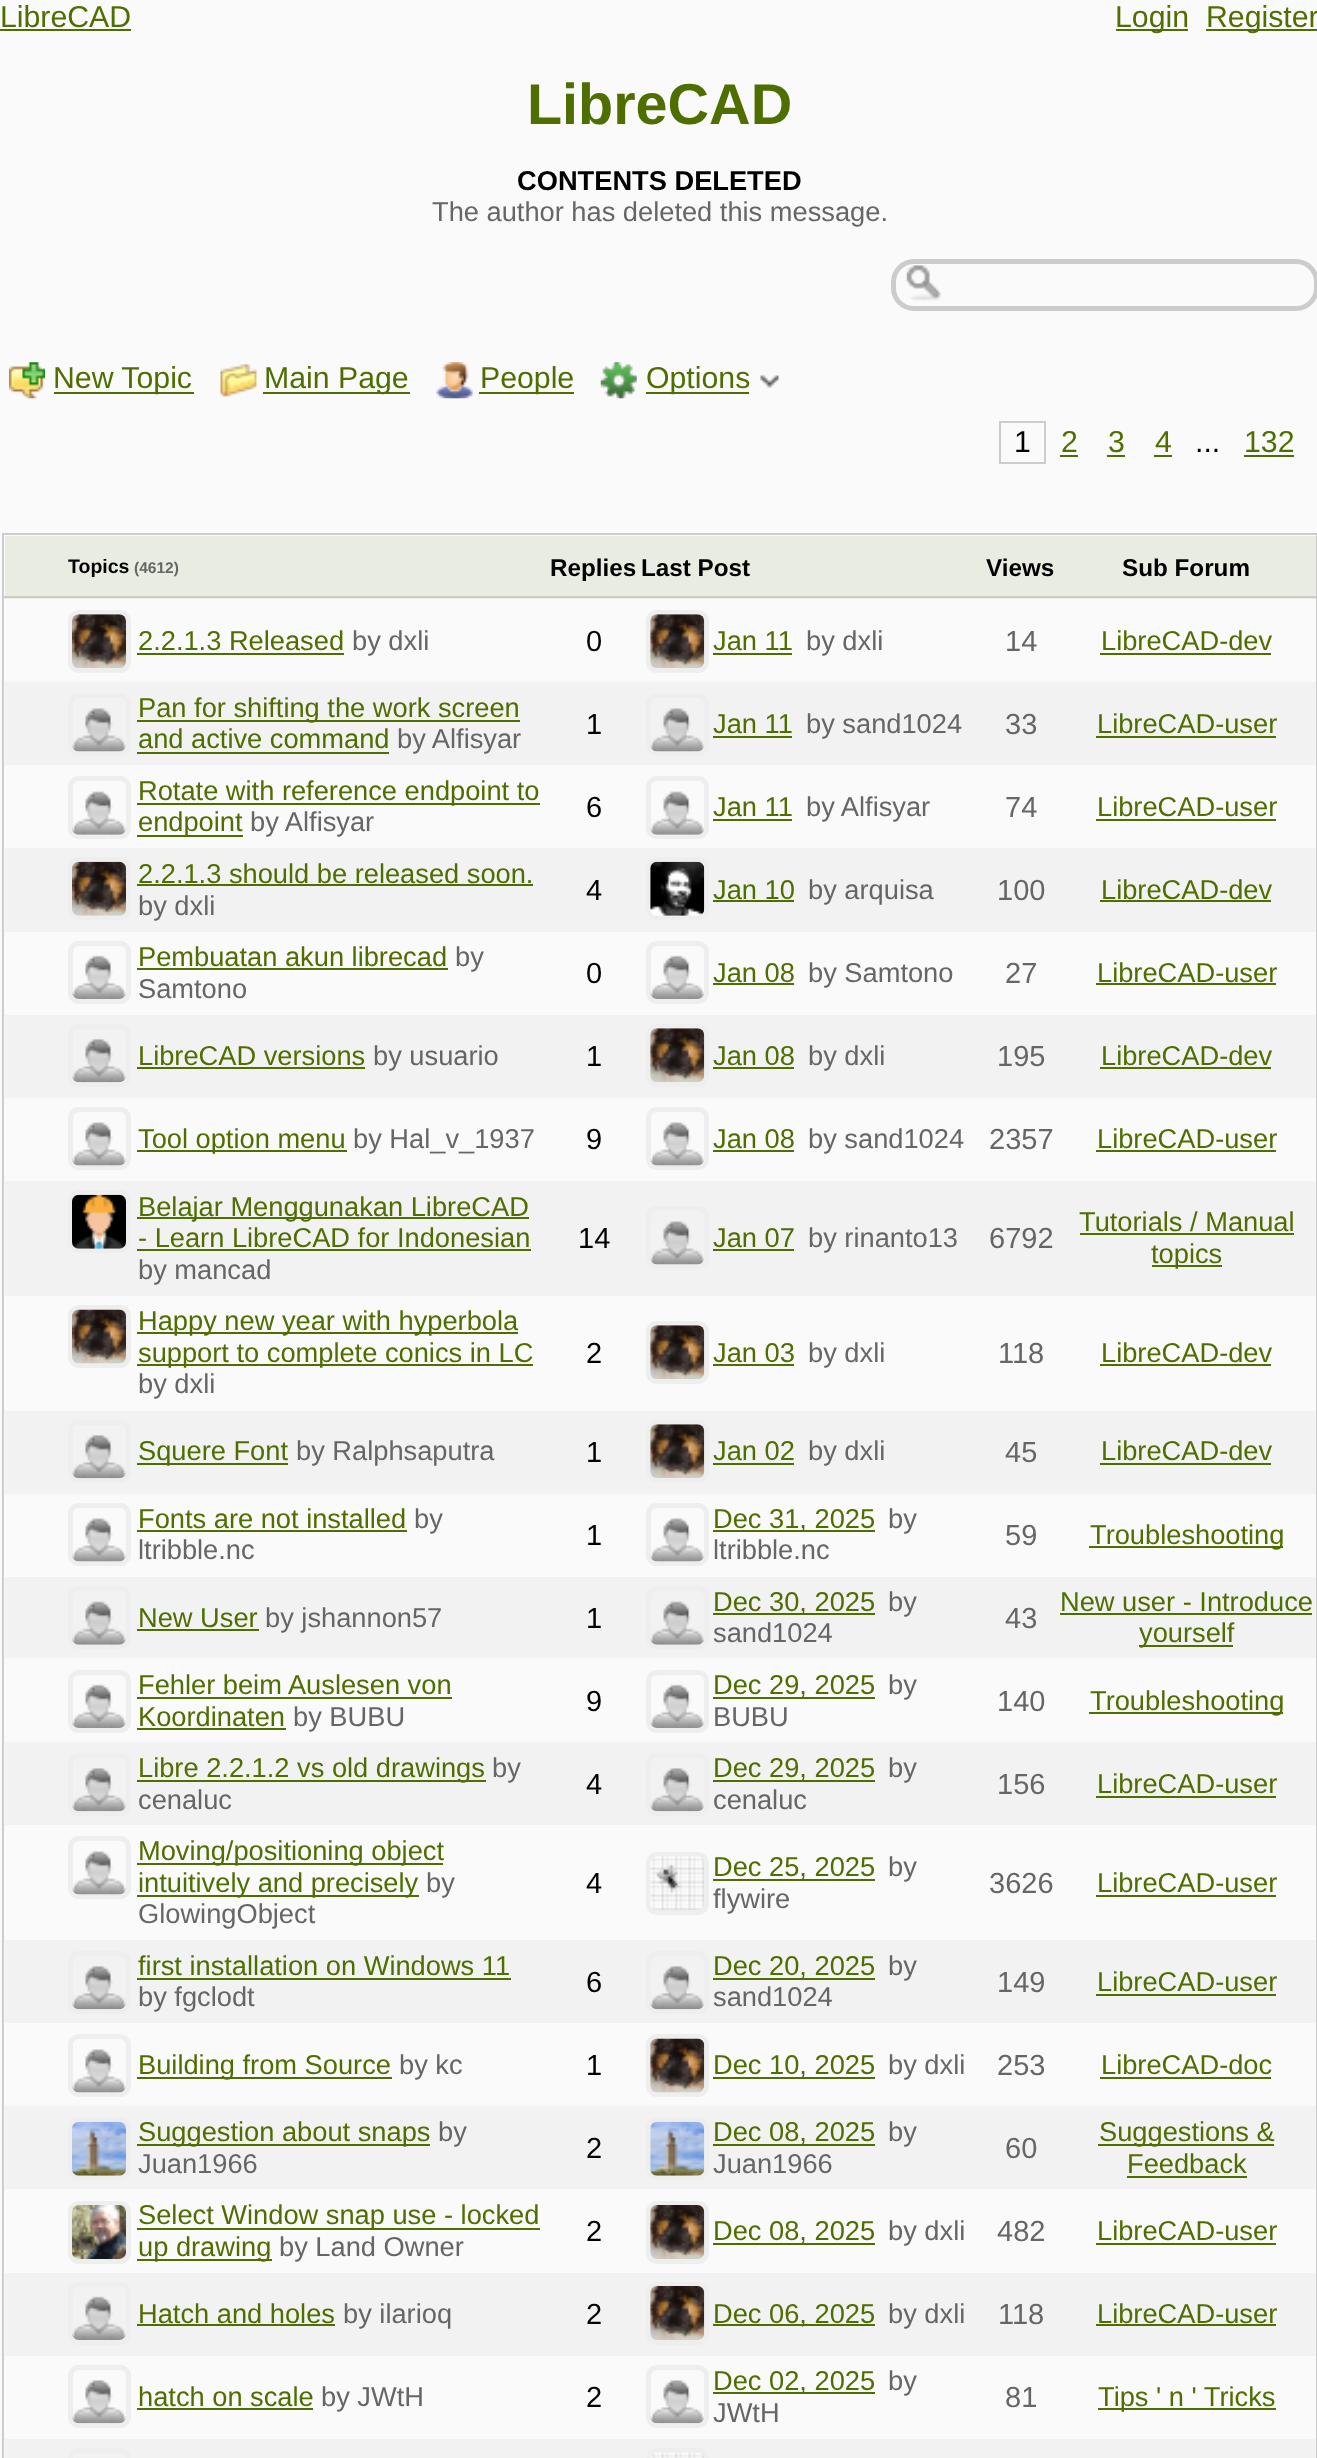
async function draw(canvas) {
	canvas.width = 1317;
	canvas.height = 2458;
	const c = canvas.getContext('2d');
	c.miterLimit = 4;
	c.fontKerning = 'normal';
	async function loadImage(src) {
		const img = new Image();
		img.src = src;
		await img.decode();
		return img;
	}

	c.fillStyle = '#fafafa';
	c.fillRect(0, 0, 1317, 2458);
	c.font = '30.25px Liberation Sans';
	c.fillStyle = '#4f6e00';
	c.fillText('LibreCAD', 0, 27);
	c.fillRect(0, 29, 131, 2);
	c.fillRect(1116, 29, 72, 2);
	c.fillText('Login', 1115, 27);
	c.fillRect(1206, 29, 111, 2);
	c.fillText('Register', 1206, 27);
	c.font = 'bold 57.5px Liberation Sans';
	c.fillText('LibreCAD', 527, 124);
	c.font = 'bold 27.25px Liberation Sans';
	c.fillStyle = '#000';
	c.fillText('CONTENTS DELETED', 517, 190);
	c.font = '27.25px Liberation Sans';
	c.fillStyle = '#666';
	c.fillText('The author has deleted this message.', 432, 221);
	c.drawImage(await loadImage('img1.png'), 906, 265, 35, 36);
	c.beginPath();
	c.roundRect(893.5, 261.5, 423, 47, 20.5);
	c.strokeStyle = '#ccc';
	c.lineWidth = 5;
	c.stroke();
	c.drawImage(await loadImage('img2.png'), 9, 362, 36, 37);
	c.fillStyle = '#4f6e00';
	c.fillRect(54, 392, 140, 2);
	c.font = '30.25px Liberation Sans';
	c.fillText('New Topic', 53, 388);
	c.drawImage(await loadImage('img3.png'), 220, 364, 37, 33);
	c.fillRect(263, 392, 147, 2);
	c.fillText('Main Page', 264, 388);
	c.drawImage(await loadImage('img4.png'), 436, 362, 37, 37);
	c.fillRect(479, 392, 95, 2);
	c.fillText('People', 480, 388);
	c.drawImage(await loadImage('img5.png'), 600, 362, 37, 37);
	c.fillRect(646, 392, 103, 2);
	c.fillText('Options', 646, 388);
	c.drawImage(await loadImage('img6.png'), 760, 375, 20, 13);
	c.lineWidth = 2;
	c.strokeRect(1000, 422, 45, 41);
	c.fillStyle = '#000';
	c.fillText('1', 1014, 452);
	c.fillStyle = '#4f6e00';
	c.fillText('2', 1061, 452);
	c.fillRect(1060, 455, 18, 2);
	c.fillText('3', 1108, 452);
	c.fillRect(1107, 455, 18, 2);
	c.fillText('4', 1155, 452);
	c.fillRect(1154, 455, 18, 2);
	c.fillStyle = '#000';
	c.fillText('...', 1195, 452);
	c.fillStyle = '#4f6e00';
	c.fillText('132', 1244, 452);
	for (const [x, y, w, h, color] of [
		[1244, 455, 50, 2, '#4f6e00'],
		[2, 533, 1315, 2, '#ccc'],
		[1316, 533, 1, 1925, '#ccc'],
		[2, 533, 2, 1925, '#ccc'],
		[5, 536, 1311, 63, '#e9ece1'],
	]) {
		c.fillStyle = color;
		c.fillRect(x, y, w, h);
	}
	c.font = 'bold 19.5px Liberation Sans';
	c.fillStyle = '#000';
	c.fillText('Topics', 68, 573);
	c.font = 'bold 15.5px Liberation Sans';
	c.fillStyle = '#666';
	c.fillText('(4612)', 134, 573);
	c.font = 'bold 24.25px Liberation Sans';
	c.fillStyle = '#000';
	for (const [text, x, y] of [
		['Replies', 550, 576],
		['Last Post', 641, 576],
		['Views', 986, 576],
	]) {
		c.fillText(text, x, y);
	}
	c.fillStyle = '#ccc';
	c.fillRect(2, 596, 1315, 2);
	c.fillStyle = '#000';
	c.fillText('Sub Forum', 1122, 576);
	c.beginPath();
	c.roundRect(70.5, 612.5, 58, 58, 8.5);
	c.strokeStyle = '#eee';
	c.lineWidth = 5;
	c.stroke();
	c.drawImage(await loadImage('img7.png'), 72, 614, 54, 54);
	c.font = '27.25px Liberation Sans';
	c.fillStyle = '#4f6e00';
	c.fillText('2.2.1.3 Released', 138, 650);
	c.fillRect(137, 653, 207, 2);
	c.fillStyle = '#666';
	c.fillText('by dxli', 352, 650);
	c.font = '29px Liberation Sans';
	c.fillStyle = '#000';
	c.fillText('0', 586, 651);
	c.beginPath();
	c.roundRect(648.5, 612.5, 58, 58, 8.5);
	c.stroke();
	c.drawImage(await loadImage('img8.png'), 650, 614, 55, 54);
	c.font = '27.25px Liberation Sans';
	c.fillStyle = '#4f6e00';
	c.fillText('Jan 11', 713, 650);
	c.fillRect(713, 653, 79, 2);
	c.fillStyle = '#666';
	c.fillText('by dxli', 806, 650);
	c.font = '29px Liberation Sans';
	c.fillText('14', 1005, 651);
	c.font = '27.25px Liberation Sans';
	c.fillStyle = '#4f6e00';
	c.fillText('LibreCAD-dev', 1101, 650);
	c.fillRect(1100, 653, 171, 2);
	c.fillStyle = '#f2f2f2';
	c.fillRect(5, 682, 1311, 83);
	c.beginPath();
	c.roundRect(70.5, 695.5, 58, 58, 8.5);
	c.stroke();
	c.drawImage(await loadImage('img9.png'), 72, 708, 54, 44);
	c.fillStyle = '#4f6e00';
	c.fillRect(137, 720, 383, 2);
	c.fillText('Pan for shifting the work screen', 138, 717);
	c.fillText('and active command', 138, 748);
	c.fillRect(137, 752, 252, 2);
	c.fillStyle = '#666';
	c.fillText('by Alfisyar', 397, 748);
	c.font = '29px Liberation Sans';
	c.fillStyle = '#000';
	c.fillText('1', 586, 734);
	c.beginPath();
	c.roundRect(648.5, 695.5, 58, 58, 8.5);
	c.stroke();
	c.drawImage(await loadImage('img10.png'), 650, 708, 54, 44);
	c.font = '27.25px Liberation Sans';
	c.fillStyle = '#4f6e00';
	c.fillText('Jan 11', 713, 733);
	c.fillRect(713, 736, 79, 2);
	c.fillStyle = '#666';
	c.fillText('by sand1024', 806, 733);
	c.font = '29px Liberation Sans';
	c.fillText('33', 1005, 734);
	c.font = '27.25px Liberation Sans';
	c.fillStyle = '#4f6e00';
	c.fillText('LibreCAD-user', 1097, 733);
	c.fillRect(1096, 736, 180, 2);
	c.beginPath();
	c.roundRect(70.5, 778.5, 58, 58, 8.5);
	c.stroke();
	c.drawImage(await loadImage('img11.png'), 72, 791, 54, 44);
	c.fillRect(137, 803, 403, 2);
	c.fillText('Rotate with reference endpoint to', 138, 800);
	c.fillRect(137, 835, 106, 2);
	c.fillText('endpoint', 138, 831);
	c.fillStyle = '#666';
	c.fillText('by Alfisyar', 250, 831);
	c.font = '29px Liberation Sans';
	c.fillStyle = '#000';
	c.fillText('6', 586, 817);
	c.beginPath();
	c.roundRect(648.5, 778.5, 58, 58, 8.5);
	c.stroke();
	c.drawImage(await loadImage('img12.png'), 650, 791, 54, 44);
	c.font = '27.25px Liberation Sans';
	c.fillStyle = '#4f6e00';
	c.fillText('Jan 11', 713, 816);
	c.fillRect(713, 819, 79, 2);
	c.fillStyle = '#666';
	c.fillText('by Alfisyar', 806, 816);
	c.font = '29px Liberation Sans';
	c.fillText('74', 1005, 817);
	c.font = '27.25px Liberation Sans';
	c.fillStyle = '#4f6e00';
	c.fillText('LibreCAD-user', 1097, 816);
	c.fillRect(1096, 819, 180, 2);
	c.fillStyle = '#f2f2f2';
	c.fillRect(5, 848, 1311, 84);
	c.beginPath();
	c.roundRect(70.5, 859.5, 58, 58, 8.5);
	c.stroke();
	c.drawImage(await loadImage('img13.png'), 72, 861, 54, 55);
	c.fillStyle = '#4f6e00';
	c.fillText('2.2.1.3 should be released soon.', 138, 883);
	c.fillRect(137, 884, 396, 2);
	c.fillStyle = '#666';
	c.fillText('by dxli', 138, 915);
	c.font = '29px Liberation Sans';
	c.fillStyle = '#000';
	c.fillText('4', 586, 900);
	c.beginPath();
	c.roundRect(648.5, 859.5, 58, 58, 8.5);
	c.stroke();
	c.drawImage(await loadImage('img14.png'), 650, 861, 55, 55);
	c.font = '27.25px Liberation Sans';
	c.fillStyle = '#4f6e00';
	c.fillText('Jan 10', 713, 899);
	c.fillRect(713, 900, 81, 2);
	c.fillStyle = '#666';
	c.fillText('by arquisa', 808, 899);
	c.font = '29px Liberation Sans';
	c.fillText('100', 997, 900);
	c.font = '27.25px Liberation Sans';
	c.fillStyle = '#4f6e00';
	c.fillText('LibreCAD-dev', 1101, 899);
	c.fillRect(1100, 900, 171, 2);
	c.beginPath();
	c.roundRect(70.5, 943.5, 58, 58, 8.5);
	c.stroke();
	c.drawImage(await loadImage('img15.png'), 72, 955, 54, 44);
	c.fillText('Pembuatan akun librecad', 138, 966);
	c.fillRect(137, 968, 311, 2);
	c.fillStyle = '#666';
	c.fillText('by', 455, 966);
	c.fillText('Samtono', 138, 998);
	c.font = '29px Liberation Sans';
	c.fillStyle = '#000';
	c.fillText('0', 586, 983);
	c.beginPath();
	c.roundRect(648.5, 943.5, 58, 58, 8.5);
	c.stroke();
	c.drawImage(await loadImage('img16.png'), 650, 955, 54, 44);
	c.font = '27.25px Liberation Sans';
	c.fillStyle = '#4f6e00';
	c.fillText('Jan 08', 713, 982);
	c.fillRect(713, 983, 81, 2);
	c.fillStyle = '#666';
	c.fillText('by Samtono', 808, 982);
	c.font = '29px Liberation Sans';
	c.fillText('27', 1005, 983);
	c.font = '27.25px Liberation Sans';
	c.fillStyle = '#4f6e00';
	c.fillText('LibreCAD-user', 1097, 982);
	c.fillRect(1096, 983, 180, 2);
	c.fillStyle = '#f2f2f2';
	c.fillRect(5, 1015, 1311, 83);
	c.beginPath();
	c.roundRect(70.5, 1026.5, 58, 58, 8.5);
	c.stroke();
	c.drawImage(await loadImage('img17.png'), 72, 1039, 54, 44);
	c.fillStyle = '#4f6e00';
	c.fillText('LibreCAD versions', 138, 1065);
	c.fillRect(137, 1067, 228, 2);
	c.fillStyle = '#666';
	c.fillText('by usuario', 373, 1065);
	c.font = '29px Liberation Sans';
	c.fillStyle = '#000';
	c.fillText('1', 586, 1066);
	c.beginPath();
	c.roundRect(648.5, 1026.5, 58, 58, 8.5);
	c.stroke();
	c.drawImage(await loadImage('img18.png'), 650, 1028, 55, 54);
	c.font = '27.25px Liberation Sans';
	c.fillStyle = '#4f6e00';
	c.fillText('Jan 08', 713, 1065);
	c.fillRect(713, 1067, 81, 2);
	c.fillStyle = '#666';
	c.fillText('by dxli', 808, 1065);
	c.font = '29px Liberation Sans';
	c.fillText('195', 997, 1066);
	c.font = '27.25px Liberation Sans';
	c.fillStyle = '#4f6e00';
	c.fillText('LibreCAD-dev', 1101, 1065);
	c.fillRect(1100, 1067, 171, 2);
	c.beginPath();
	c.roundRect(70.5, 1109.5, 58, 58, 8.5);
	c.stroke();
	c.drawImage(await loadImage('img19.png'), 72, 1122, 54, 44);
	c.fillRect(137, 1150, 210, 2);
	c.fillText('Tool option menu', 138, 1148);
	c.fillStyle = '#666';
	c.fillText('by Hal_v_1937', 353, 1148);
	c.font = '29px Liberation Sans';
	c.fillStyle = '#000';
	c.fillText('9', 586, 1149);
	c.beginPath();
	c.roundRect(648.5, 1109.5, 58, 58, 8.5);
	c.stroke();
	c.drawImage(await loadImage('img20.png'), 650, 1122, 54, 44);
	c.font = '27.25px Liberation Sans';
	c.fillStyle = '#4f6e00';
	c.fillText('Jan 08', 713, 1148);
	c.fillRect(713, 1150, 81, 2);
	c.fillStyle = '#666';
	c.fillText('by sand1024', 808, 1148);
	c.font = '29px Liberation Sans';
	c.fillText('2357', 989, 1149);
	c.font = '27.25px Liberation Sans';
	c.fillStyle = '#4f6e00';
	c.fillText('LibreCAD-user', 1097, 1148);
	c.fillRect(1096, 1150, 180, 2);
	c.fillStyle = '#f2f2f2';
	c.fillRect(5, 1181, 1311, 115);
	c.beginPath();
	c.roundRect(70.5, 1192.5, 58, 58, 8.5);
	c.stroke();
	c.drawImage(await loadImage('img21.png'), 72, 1194, 54, 55);
	c.fillStyle = '#4f6e00';
	c.fillRect(137, 1217, 392, 2);
	c.fillText('Belajar Menggunakan LibreCAD', 138, 1216);
	c.fillText('- Learn LibreCAD for Indonesian', 138, 1247);
	c.fillRect(137, 1249, 394, 2);
	c.fillStyle = '#666';
	c.fillText('by mancad', 138, 1279);
	c.font = '29px Liberation Sans';
	c.fillStyle = '#000';
	c.fillText('14', 578, 1248);
	c.beginPath();
	c.roundRect(648.5, 1208.5, 58, 58, 8.5);
	c.stroke();
	c.drawImage(await loadImage('img10.png'), 650, 1221, 54, 44);
	c.font = '27.25px Liberation Sans';
	c.fillStyle = '#4f6e00';
	c.fillText('Jan 07', 713, 1247);
	c.fillRect(713, 1249, 81, 2);
	c.fillStyle = '#666';
	c.fillText('by rinanto13', 808, 1247);
	c.font = '29px Liberation Sans';
	c.fillText('6792', 989, 1248);
	c.font = '27.25px Liberation Sans';
	c.fillStyle = '#4f6e00';
	c.fillText('Tutorials / Manual', 1079, 1231);
	c.fillRect(1080, 1233, 214, 2);
	c.fillRect(1152, 1265, 70, 2);
	c.fillText('topics', 1151, 1263);
	c.beginPath();
	c.roundRect(70.5, 1307.5, 58, 58, 8.5);
	c.stroke();
	c.drawImage(await loadImage('img22.png'), 72, 1309, 54, 55);
	c.fillRect(137, 1332, 381, 2);
	c.fillText('Happy new year with hyperbola', 138, 1330);
	c.fillRect(137, 1364, 396, 2);
	c.fillText('support to complete conics in LC', 138, 1362);
	c.fillStyle = '#666';
	c.fillText('by dxli', 138, 1393);
	c.font = '29px Liberation Sans';
	c.fillStyle = '#000';
	c.fillText('2', 586, 1363);
	c.beginPath();
	c.roundRect(648.5, 1323.5, 58, 58, 8.5);
	c.stroke();
	c.drawImage(await loadImage('img8.png'), 650, 1325, 55, 54);
	c.font = '27.25px Liberation Sans';
	c.fillStyle = '#4f6e00';
	c.fillText('Jan 03', 713, 1362);
	c.fillRect(713, 1364, 81, 2);
	c.fillStyle = '#666';
	c.fillText('by dxli', 808, 1362);
	c.font = '29px Liberation Sans';
	c.fillText('118', 998, 1363);
	c.font = '27.25px Liberation Sans';
	c.fillStyle = '#4f6e00';
	c.fillText('LibreCAD-dev', 1101, 1362);
	c.fillRect(1100, 1364, 171, 2);
	c.fillStyle = '#f2f2f2';
	c.fillRect(5, 1411, 1311, 83);
	c.beginPath();
	c.roundRect(70.5, 1422.5, 58, 58, 8.5);
	c.stroke();
	c.drawImage(await loadImage('img17.png'), 72, 1435, 54, 44);
	c.fillStyle = '#4f6e00';
	c.fillRect(137, 1463, 151, 2);
	c.fillText('Squere Font', 138, 1460);
	c.fillStyle = '#666';
	c.fillText('by Ralphsaputra', 296, 1460);
	c.font = '29px Liberation Sans';
	c.fillStyle = '#000';
	c.fillText('1', 586, 1462);
	c.beginPath();
	c.roundRect(648.5, 1422.5, 58, 58, 8.5);
	c.stroke();
	c.drawImage(await loadImage('img18.png'), 650, 1424, 55, 54);
	c.font = '27.25px Liberation Sans';
	c.fillStyle = '#4f6e00';
	c.fillText('Jan 02', 713, 1460);
	c.fillRect(713, 1463, 81, 2);
	c.fillStyle = '#666';
	c.fillText('by dxli', 808, 1460);
	c.font = '29px Liberation Sans';
	c.fillText('45', 1005, 1462);
	c.font = '27.25px Liberation Sans';
	c.fillStyle = '#4f6e00';
	c.fillText('LibreCAD-dev', 1101, 1460);
	c.fillRect(1100, 1463, 171, 2);
	c.beginPath();
	c.roundRect(70.5, 1505.5, 58, 58, 8.5);
	c.stroke();
	c.drawImage(await loadImage('img23.png'), 72, 1518, 54, 44);
	c.fillText('Fonts are not installed', 138, 1528);
	c.fillRect(137, 1530, 270, 2);
	c.fillStyle = '#666';
	c.fillText('by', 414, 1528);
	c.fillText('ltribble.nc', 138, 1559);
	c.font = '29px Liberation Sans';
	c.fillStyle = '#000';
	c.fillText('1', 586, 1545);
	c.beginPath();
	c.roundRect(648.5, 1505.5, 58, 58, 8.5);
	c.stroke();
	c.drawImage(await loadImage('img24.png'), 650, 1518, 54, 44);
	c.fillStyle = '#4f6e00';
	c.fillRect(713, 1530, 162, 2);
	c.font = '27.25px Liberation Sans';
	c.fillText('Dec 31, 2025', 713, 1528);
	c.fillStyle = '#666';
	c.fillText('by', 888, 1528);
	c.fillText('ltribble.nc', 713, 1559);
	c.font = '29px Liberation Sans';
	c.fillText('59', 1005, 1545);
	c.fillStyle = '#4f6e00';
	c.fillRect(1089, 1546, 194, 2);
	c.font = '27.25px Liberation Sans';
	c.fillText('Troubleshooting', 1090, 1544);
	c.fillStyle = '#f2f2f2';
	c.fillRect(5, 1577, 1311, 81);
	c.beginPath();
	c.roundRect(70.5, 1588.5, 58, 58, 8.5);
	c.stroke();
	c.drawImage(await loadImage('img25.png'), 72, 1601, 54, 44);
	c.fillStyle = '#4f6e00';
	c.fillText('New User', 138, 1627);
	c.fillRect(137, 1629, 122, 2);
	c.fillStyle = '#666';
	c.fillText('by jshannon57', 265, 1627);
	c.font = '29px Liberation Sans';
	c.fillStyle = '#000';
	c.fillText('1', 586, 1628);
	c.beginPath();
	c.roundRect(648.5, 1588.5, 58, 58, 8.5);
	c.stroke();
	c.drawImage(await loadImage('img26.png'), 650, 1601, 54, 44);
	c.fillStyle = '#4f6e00';
	c.fillRect(713, 1613, 162, 2);
	c.font = '27.25px Liberation Sans';
	c.fillText('Dec 30, 2025', 713, 1611);
	c.fillStyle = '#666';
	c.fillText('by', 888, 1611);
	c.fillText('sand1024', 713, 1642);
	c.font = '29px Liberation Sans';
	c.fillText('43', 1005, 1628);
	c.font = '27.25px Liberation Sans';
	c.fillStyle = '#4f6e00';
	c.fillText('New user - Introduce', 1060, 1611);
	c.fillRect(1060, 1613, 252, 2);
	c.fillRect(1139, 1645, 94, 2);
	c.fillText('yourself', 1139, 1642);
	c.beginPath();
	c.roundRect(70.5, 1672.5, 58, 58, 8.5);
	c.stroke();
	c.drawImage(await loadImage('img15.png'), 72, 1684, 54, 44);
	c.fillText('Fehler beim Auslesen von', 138, 1694);
	c.fillRect(137, 1697, 315, 2);
	c.fillText('Koordinaten', 138, 1726);
	c.fillRect(137, 1728, 149, 2);
	c.fillStyle = '#666';
	c.fillText('by BUBU', 293, 1726);
	c.font = '29px Liberation Sans';
	c.fillStyle = '#000';
	c.fillText('9', 586, 1711);
	c.beginPath();
	c.roundRect(648.5, 1672.5, 58, 58, 8.5);
	c.stroke();
	c.drawImage(await loadImage('img16.png'), 650, 1684, 54, 44);
	c.fillStyle = '#4f6e00';
	c.fillRect(713, 1697, 162, 2);
	c.font = '27.25px Liberation Sans';
	c.fillText('Dec 29, 2025', 713, 1694);
	c.fillStyle = '#666';
	c.fillText('by', 888, 1694);
	c.fillText('BUBU', 713, 1726);
	c.font = '29px Liberation Sans';
	c.fillText('140', 997, 1711);
	c.fillStyle = '#4f6e00';
	c.fillRect(1089, 1712, 194, 2);
	c.font = '27.25px Liberation Sans';
	c.fillText('Troubleshooting', 1090, 1710);
	c.fillStyle = '#f2f2f2';
	c.fillRect(5, 1742, 1311, 83);
	c.beginPath();
	c.roundRect(70.5, 1755.5, 58, 58, 8.5);
	c.stroke();
	c.drawImage(await loadImage('img27.png'), 72, 1768, 54, 44);
	c.fillStyle = '#4f6e00';
	c.fillRect(137, 1780, 349, 2);
	c.fillText('Libre 2.2.1.2 vs old drawings', 138, 1777);
	c.fillStyle = '#666';
	c.fillText('by', 492, 1777);
	c.fillText('cenaluc', 138, 1809);
	c.font = '29px Liberation Sans';
	c.fillStyle = '#000';
	c.fillText('4', 586, 1794);
	c.beginPath();
	c.roundRect(648.5, 1755.5, 58, 58, 8.5);
	c.stroke();
	c.drawImage(await loadImage('img28.png'), 650, 1768, 54, 44);
	c.fillStyle = '#4f6e00';
	c.fillRect(713, 1780, 162, 2);
	c.font = '27.25px Liberation Sans';
	c.fillText('Dec 29, 2025', 713, 1777);
	c.fillStyle = '#666';
	c.fillText('by', 888, 1777);
	c.fillText('cenaluc', 713, 1809);
	c.font = '29px Liberation Sans';
	c.fillText('156', 997, 1794);
	c.font = '27.25px Liberation Sans';
	c.fillStyle = '#4f6e00';
	c.fillText('LibreCAD-user', 1097, 1793);
	c.fillRect(1096, 1796, 180, 2);
	c.beginPath();
	c.roundRect(70.5, 1838.5, 58, 58, 8.5);
	c.stroke();
	c.drawImage(await loadImage('img19.png'), 72, 1851, 54, 44);
	c.fillRect(137, 1863, 306, 2);
	c.fillText('Moving/positioning object', 138, 1860);
	c.fillRect(137, 1895, 282, 2);
	c.fillText('intuitively and precisely', 138, 1892);
	c.fillStyle = '#666';
	c.fillText('by', 426, 1892);
	c.fillText('GlowingObject', 138, 1923);
	c.font = '29px Liberation Sans';
	c.fillStyle = '#000';
	c.fillText('4', 586, 1893);
	c.beginPath();
	c.roundRect(648.5, 1854.5, 58, 58, 8.5);
	c.stroke();
	c.drawImage(await loadImage('img29.png'), 650, 1856, 54, 54);
	c.fillStyle = '#4f6e00';
	c.fillRect(713, 1879, 162, 2);
	c.font = '27.25px Liberation Sans';
	c.fillText('Dec 25, 2025', 713, 1876);
	c.fillStyle = '#666';
	c.fillText('by', 888, 1876);
	c.fillText('flywire', 713, 1908);
	c.font = '29px Liberation Sans';
	c.fillText('3626', 989, 1893);
	c.font = '27.25px Liberation Sans';
	c.fillStyle = '#4f6e00';
	c.fillText('LibreCAD-user', 1097, 1892);
	c.fillRect(1096, 1895, 180, 2);
	c.fillStyle = '#f2f2f2';
	c.fillRect(5, 1940, 1311, 83);
	c.beginPath();
	c.roundRect(70.5, 1953.5, 58, 58, 8.5);
	c.stroke();
	c.drawImage(await loadImage('img17.png'), 72, 1966, 54, 44);
	c.fillStyle = '#4f6e00';
	c.fillText('first installation on Windows 11', 138, 1975);
	c.fillRect(137, 1978, 374, 2);
	c.fillStyle = '#666';
	c.fillText('by fgclodt', 138, 2006);
	c.font = '29px Liberation Sans';
	c.fillStyle = '#000';
	c.fillText('6', 586, 1992);
	c.beginPath();
	c.roundRect(648.5, 1953.5, 58, 58, 8.5);
	c.stroke();
	c.drawImage(await loadImage('img30.png'), 650, 1966, 54, 44);
	c.fillStyle = '#4f6e00';
	c.fillRect(713, 1978, 162, 2);
	c.font = '27.25px Liberation Sans';
	c.fillText('Dec 20, 2025', 713, 1975);
	c.fillStyle = '#666';
	c.fillText('by', 888, 1975);
	c.fillText('sand1024', 713, 2006);
	c.font = '29px Liberation Sans';
	c.fillText('149', 997, 1992);
	c.font = '27.25px Liberation Sans';
	c.fillStyle = '#4f6e00';
	c.fillText('LibreCAD-user', 1097, 1991);
	c.fillRect(1096, 1994, 180, 2);
	c.beginPath();
	c.roundRect(70.5, 2036.5, 58, 58, 8.5);
	c.stroke();
	c.drawImage(await loadImage('img19.png'), 72, 2049, 54, 44);
	c.fillRect(137, 2077, 255, 2);
	c.fillText('Building from Source', 138, 2074);
	c.fillStyle = '#666';
	c.fillText('by kc', 399, 2074);
	c.font = '29px Liberation Sans';
	c.fillStyle = '#000';
	c.fillText('1', 586, 2075);
	c.beginPath();
	c.roundRect(648.5, 2036.5, 58, 58, 8.5);
	c.stroke();
	c.drawImage(await loadImage('img31.png'), 650, 2038, 55, 55);
	c.fillStyle = '#4f6e00';
	c.fillRect(713, 2077, 162, 2);
	c.font = '27.25px Liberation Sans';
	c.fillText('Dec 10, 2025', 713, 2074);
	c.fillStyle = '#666';
	c.fillText('by dxli', 888, 2074);
	c.font = '29px Liberation Sans';
	c.fillText('253', 997, 2075);
	c.font = '27.25px Liberation Sans';
	c.fillStyle = '#4f6e00';
	c.fillText('LibreCAD-doc', 1101, 2074);
	c.fillRect(1100, 2077, 171, 2);
	c.fillStyle = '#f2f2f2';
	c.fillRect(5, 2106, 1311, 83);
	c.beginPath();
	c.roundRect(70.5, 2119.5, 58, 58, 8.5);
	c.stroke();
	c.drawImage(await loadImage('img32.png'), 72, 2121, 54, 55);
	c.fillStyle = '#4f6e00';
	c.fillRect(137, 2144, 293, 2);
	c.fillText('Suggestion about snaps', 138, 2141);
	c.fillStyle = '#666';
	c.fillText('by', 438, 2141);
	c.fillText('Juan1966', 138, 2173);
	c.font = '29px Liberation Sans';
	c.fillStyle = '#000';
	c.fillText('2', 586, 2158);
	c.beginPath();
	c.roundRect(648.5, 2119.5, 58, 58, 8.5);
	c.stroke();
	c.drawImage(await loadImage('img33.png'), 650, 2121, 55, 55);
	c.fillStyle = '#4f6e00';
	c.fillRect(713, 2144, 162, 2);
	c.font = '27.25px Liberation Sans';
	c.fillText('Dec 08, 2025', 713, 2141);
	c.fillStyle = '#666';
	c.fillText('by', 888, 2141);
	c.fillText('Juan1966', 713, 2173);
	c.font = '29px Liberation Sans';
	c.fillText('60', 1005, 2158);
	c.fillStyle = '#4f6e00';
	c.fillRect(1098, 2144, 176, 2);
	c.font = '27.25px Liberation Sans';
	c.fillText('Suggestions &', 1099, 2141);
	c.fillText('Feedback', 1127, 2173);
	c.fillRect(1127, 2176, 120, 2);
	c.beginPath();
	c.roundRect(70.5, 2203.5, 58, 58, 8.5);
	c.stroke();
	c.drawImage(await loadImage('img34.png'), 72, 2205, 54, 54);
	c.fillRect(137, 2228, 403, 2);
	c.fillText('Select Window snap use - locked', 138, 2224);
	c.fillRect(137, 2259, 135, 2);
	c.fillText('up drawing', 138, 2256);
	c.fillStyle = '#666';
	c.fillText('by Land Owner', 279, 2256);
	c.font = '29px Liberation Sans';
	c.fillStyle = '#000';
	c.fillText('2', 586, 2241);
	c.beginPath();
	c.roundRect(648.5, 2203.5, 58, 58, 8.5);
	c.stroke();
	c.drawImage(await loadImage('img35.png'), 650, 2205, 55, 54);
	c.fillStyle = '#4f6e00';
	c.fillRect(713, 2243, 162, 2);
	c.font = '27.25px Liberation Sans';
	c.fillText('Dec 08, 2025', 713, 2240);
	c.fillStyle = '#666';
	c.fillText('by dxli', 888, 2240);
	c.font = '29px Liberation Sans';
	c.fillText('482', 997, 2241);
	c.font = '27.25px Liberation Sans';
	c.fillStyle = '#4f6e00';
	c.fillText('LibreCAD-user', 1097, 2240);
	c.fillRect(1096, 2243, 180, 2);
	c.fillStyle = '#f2f2f2';
	c.fillRect(5, 2273, 1311, 83);
	c.beginPath();
	c.roundRect(70.5, 2284.5, 58, 58, 8.5);
	c.stroke();
	c.drawImage(await loadImage('img36.png'), 72, 2296, 54, 44);
	c.fillStyle = '#4f6e00';
	c.fillText('Hatch and holes', 138, 2323);
	c.fillRect(137, 2324, 198, 2);
	c.fillStyle = '#666';
	c.fillText('by ilarioq', 343, 2323);
	c.font = '29px Liberation Sans';
	c.fillStyle = '#000';
	c.fillText('2', 586, 2324);
	c.beginPath();
	c.roundRect(648.5, 2284.5, 58, 58, 8.5);
	c.stroke();
	c.drawImage(await loadImage('img37.png'), 650, 2286, 55, 54);
	c.fillStyle = '#4f6e00';
	c.fillRect(713, 2324, 162, 2);
	c.font = '27.25px Liberation Sans';
	c.fillText('Dec 06, 2025', 713, 2323);
	c.fillStyle = '#666';
	c.fillText('by dxli', 888, 2323);
	c.font = '29px Liberation Sans';
	c.fillText('118', 998, 2324);
	c.font = '27.25px Liberation Sans';
	c.fillStyle = '#4f6e00';
	c.fillText('LibreCAD-user', 1097, 2323);
	c.fillRect(1096, 2324, 180, 2);
	c.beginPath();
	c.roundRect(70.5, 2367.5, 58, 58, 8.5);
	c.stroke();
	c.drawImage(await loadImage('img38.png'), 72, 2380, 54, 44);
	c.fillText('hatch on scale', 138, 2406);
	c.fillRect(137, 2408, 176, 2);
	c.fillStyle = '#666';
	c.fillText('by JWtH', 321, 2406);
	c.font = '29px Liberation Sans';
	c.fillStyle = '#000';
	c.fillText('2', 586, 2407);
	c.beginPath();
	c.roundRect(648.5, 2367.5, 58, 58, 8.5);
	c.stroke();
	c.drawImage(await loadImage('img39.png'), 650, 2380, 54, 44);
	c.fillStyle = '#4f6e00';
	c.fillRect(713, 2392, 162, 2);
	c.font = '27.25px Liberation Sans';
	c.fillText('Dec 02, 2025', 713, 2390);
	c.fillStyle = '#666';
	c.fillText('by', 888, 2390);
	c.fillText('JWtH', 713, 2422);
	c.font = '29px Liberation Sans';
	c.fillText('81', 1005, 2407);
	c.fillStyle = '#4f6e00';
	c.fillRect(1098, 2408, 178, 2);
	c.font = '27.25px Liberation Sans';
	c.fillText('Tips \' n \' Tricks', 1098, 2406);
	c.fillStyle = '#f2f2f2';
	c.fillRect(5, 2439, 1311, 19);
	c.beginPath();
	c.roundRect(70.5, 2450.5, 58, 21, 8.5);
	c.stroke();
	c.beginPath();
	c.roundRect(648.5, 2450.5, 58, 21, 8.5);
	c.stroke();
	c.drawImage(await loadImage('img40.png'), 650, 2452, 54, 6);
}

draw(document.querySelector('canvas'));
